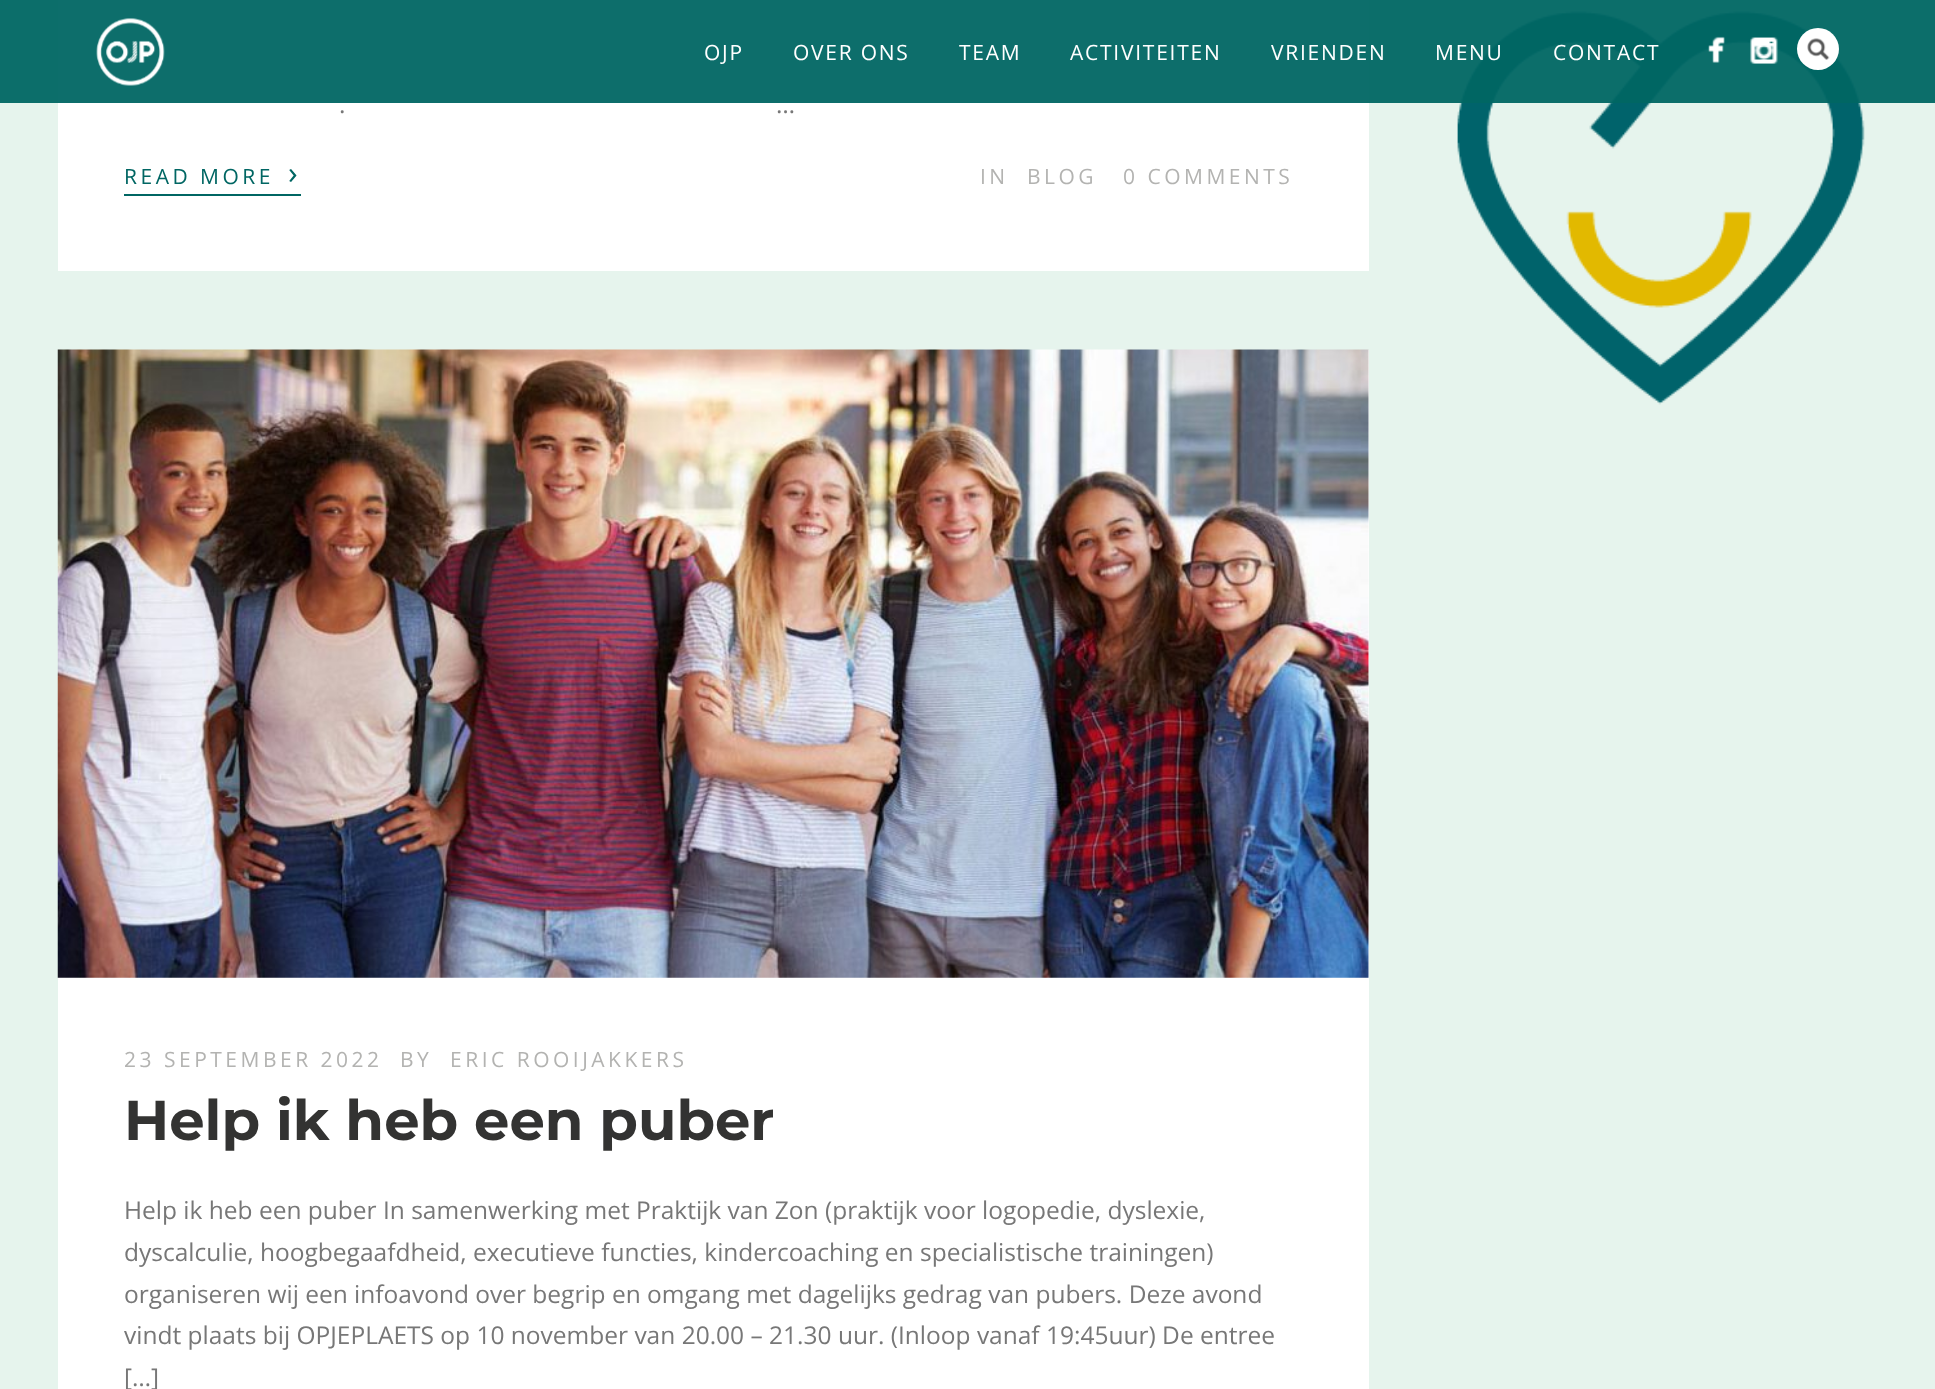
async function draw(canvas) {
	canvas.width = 1935;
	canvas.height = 1389;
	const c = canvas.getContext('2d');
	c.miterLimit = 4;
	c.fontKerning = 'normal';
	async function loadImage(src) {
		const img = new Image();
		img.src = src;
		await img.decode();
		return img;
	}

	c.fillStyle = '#e6f4ed';
	c.fillRect(0, 0, 1935, 1389);
	c.fillStyle = '#fff';
	c.fillRect(58, 0, 1311, 271);
	c.drawImage(await loadImage('img6.png'), 1457, 11, 408, 394);
	c.fillStyle = '#006663f2';
	c.fillRect(0, 0, 1935, 103);
	c.drawImage(await loadImage('img1.png'), 96, 18, 69, 68);
	c.letterSpacing = '1.75px';
	c.font = '21px Open Sans';
	c.fillStyle = '#fff';
	for (const [text, x, y] of [
		['OJP', 704, 60],
		['OVER ONS', 793, 60],
		['TEAM', 959, 60],
		['ACTIVITEITEN', 1070, 60],
		['VRIENDEN', 1271, 60],
		['MENU', 1435, 60],
		['CONTACT', 1553, 60],
	]) {
		c.fillText(text, x, y);
	}
	c.drawImage(await loadImage('img2.png'), 1708, 36, 17, 27);
	c.drawImage(await loadImage('img3.png'), 1750, 37, 28, 27);
	c.beginPath();
	c.arc(1818, 49, 21, 0, 2 * Math.PI);
	c.fill();
	c.drawImage(await loadImage('img4.png'), 1807, 38, 23, 22);
	c.letterSpacing = '0px';
	c.font = '24.5px Open Sans';
	c.fillStyle = '#777';
	c.fillText('.', 339, 113);
	c.fillText('…', 776, 113);
	c.fillStyle = '#006663';
	c.fillRect(124, 194, 177, 2);
	c.letterSpacing = '3.5px';
	c.font = '21px Open Sans';
	c.fillText('READ MORE', 124, 184);
	c.font = '32px Open Sans';
	c.fillText('›', 288, 184);
	c.font = '21px Open Sans';
	c.fillStyle = '#b3b3b1';
	for (const [text, x, y] of [
		['IN', 980, 184],
		['BLOG', 1027, 184],
		['0 COMMENTS', 1123, 184],
	]) {
		c.fillText(text, x, y);
	}
	c.fillStyle = '#fff';
	c.fillRect(58, 350, 1311, 1039);
	c.drawImage(await loadImage('img5.png'), 57, 349, 1312, 629);
	c.fillStyle = '#b3b3b1';
	for (const [text, x, y] of [
		['23 SEPTEMBER 2022', 124, 1067],
		['BY', 400, 1067],
		['ERIC ROOIJAKKERS', 450, 1067],
	]) {
		c.fillText(text, x, y);
	}
	c.letterSpacing = '0px';
	c.font = 'bold 56px Montserrat';
	c.fillStyle = '#333332';
	c.fillText('Help ik heb een puber', 124, 1140);
	c.font = '24.5px Open Sans';
	c.fillStyle = '#777';
	for (const [text, x, y] of [
		['Help ik heb een puber In samenwerking met Praktijk van Zon (praktijk voor logopedie, dyslexie,', 124, 1219],
		['dyscalculie, hoogbegaafdheid, executieve functies, kindercoaching en specialistische trainingen)', 124, 1261],
		['organiseren wij een infoavond over begrip en omgang met dagelijks gedrag van pubers. Deze avond', 124, 1303],
		['vindt plaats bij OPJEPLAETS op 10 november van 20.00 – 21.30 uur. (Inloop vanaf 19:45uur) De entree', 124, 1344],
		['[…]', 124, 1386],
	]) {
		c.fillText(text, x, y);
	}
}

draw(document.querySelector('canvas'));
